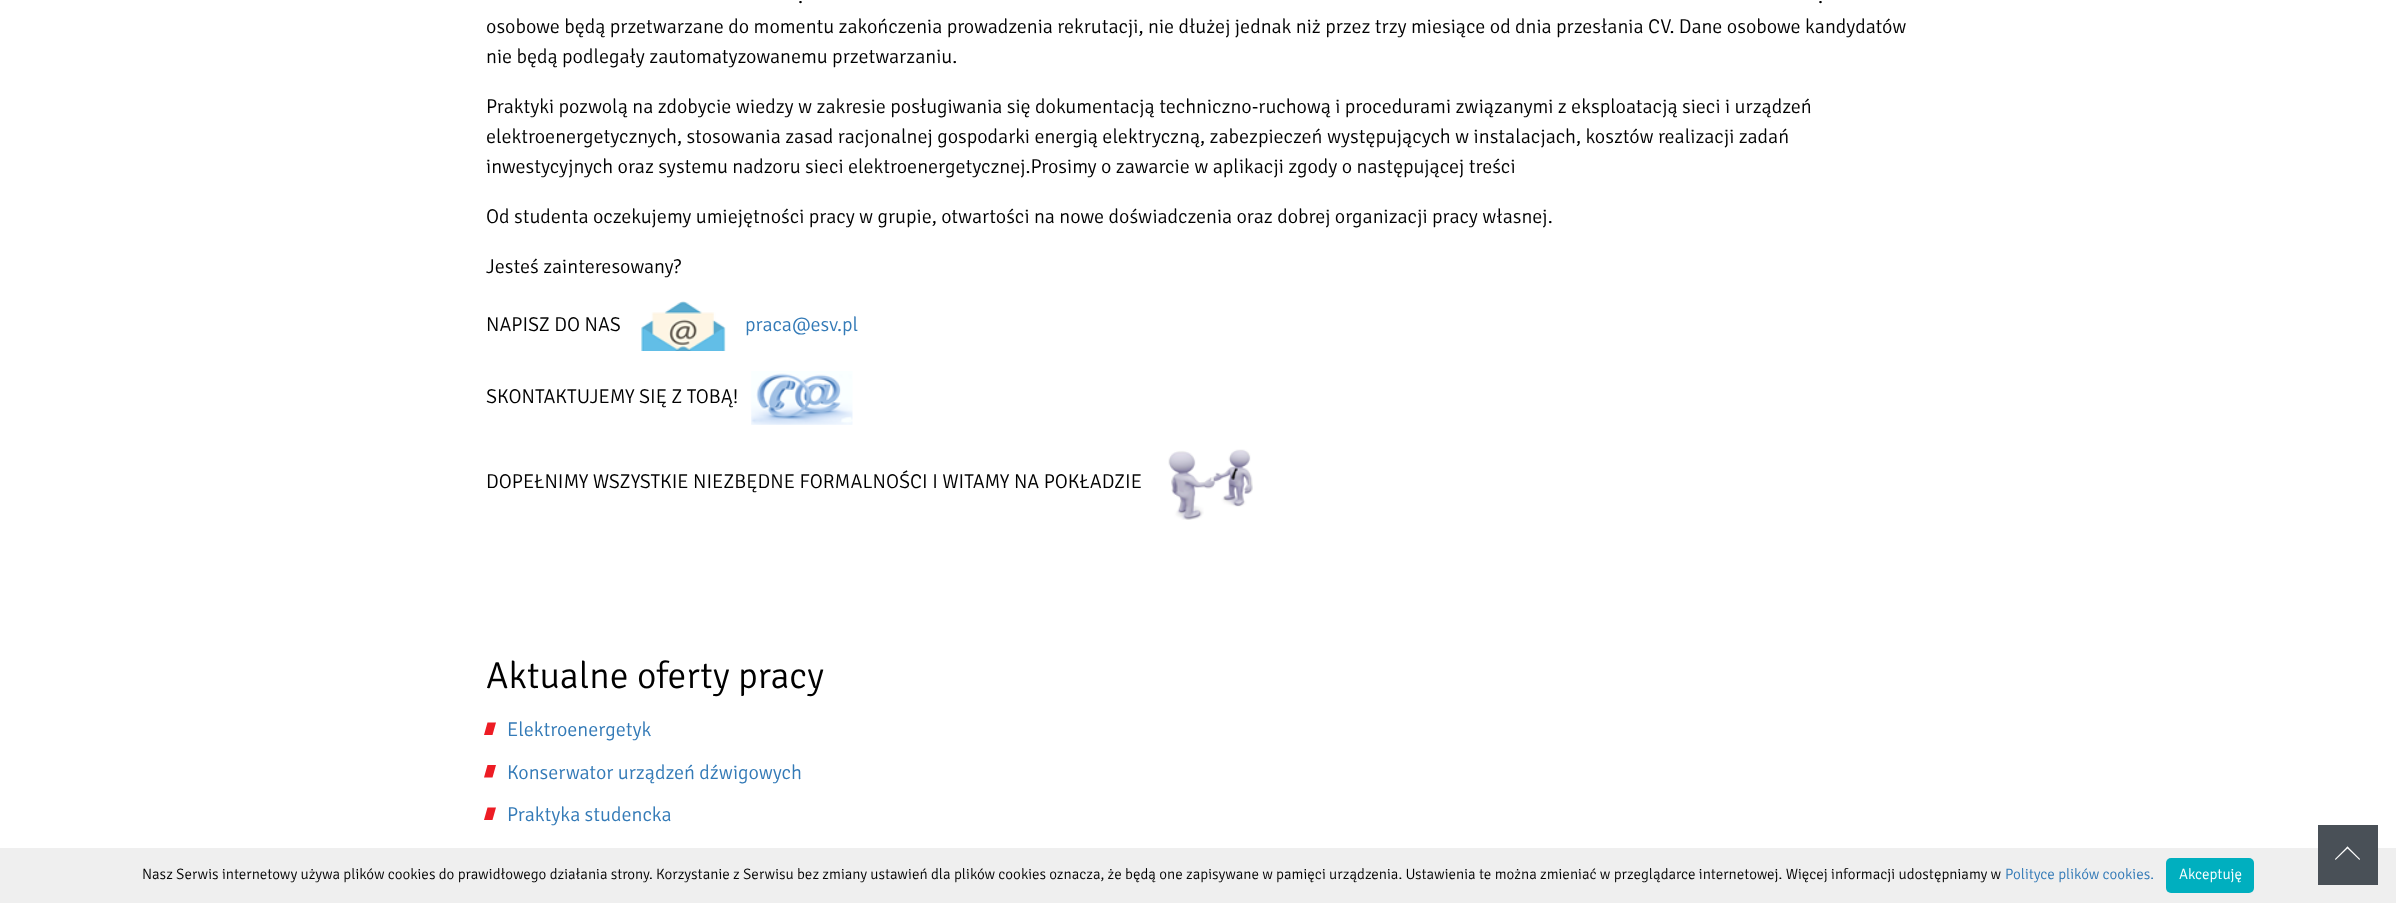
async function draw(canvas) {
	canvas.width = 2396;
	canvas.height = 903;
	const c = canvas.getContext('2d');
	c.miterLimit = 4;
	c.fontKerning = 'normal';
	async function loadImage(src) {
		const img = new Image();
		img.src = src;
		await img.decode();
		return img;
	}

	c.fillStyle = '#fff';
	c.fillRect(0, 0, 2396, 903);
	c.font = '300 20px Signika';
	c.fillStyle = '#000';
	for (const [text, x, y] of [
		['.', 798, 3],
		['.', 1818, 3],
		['osobowe będą przetwarzane do momentu zakończenia prowadzenia rekrutacji, nie dłużej jednak niż przez trzy miesiące od dnia przesłania CV. Dane osobowe kandydatów', 486, 33],
		['nie będą podlegały zautomatyzowanemu przetwarzaniu.', 486, 63],
		['Praktyki pozwolą na zdobycie wiedzy w zakresie posługiwania się dokumentacją techniczno-ruchową i procedurami związanymi z eksploatacją sieci i urządzeń', 486, 113],
		['elektroenergetycznych, stosowania zasad racjonalnej gospodarki energią elektryczną, zabezpieczeń występujących w instalacjach, kosztów realizacji zadań', 486, 143],
		['inwestycyjnych oraz systemu nadzoru sieci elektroenergetycznej.Prosimy o zawarcie w aplikacji zgody o następującej treści', 486, 173],
		['Od studenta oczekujemy umiejętności pracy w grupie, otwartości na nowe doświadczenia oraz dobrej organizacji pracy własnej.', 486, 223],
		['Jesteś zainteresowany?', 486, 273],
		['NAPISZ DO NAS', 486, 331],
	]) {
		c.fillText(text, x, y);
	}
	c.drawImage(await loadImage('img1.png'), 641, 301, 85, 50);
	c.fillStyle = '#337ab7';
	c.fillText('praca@esv.pl', 745, 331);
	c.fillStyle = '#000';
	c.fillText('SKONTAKTUJEMY SIĘ Z TOBĄ!', 486, 403);
	c.drawImage(await loadImage('img2.png'), 751, 371, 102, 54);
	c.fillText('DOPEŁNIMY WSZYSTKIE NIEZBĘDNE FORMALNOŚCI I WITAMY NA POKŁADZIE', 486, 488);
	c.drawImage(await loadImage('img3.png'), 1168, 449, 85, 71);
	c.font = '300 37.5px Signika';
	c.fillText('Aktualne oferty pracy', 486, 688);
	c.fillStyle = '#ed1c24';
	c.beginPath();
	c.moveTo(487.5, 722.5);
	c.lineTo(496, 722.5);
	c.lineTo(492.5, 735);
	c.lineTo(484, 735);
	c.closePath();
	c.moveTo(487.5, 765);
	c.lineTo(496, 765);
	c.lineTo(492.5, 777.5);
	c.lineTo(484, 777.5);
	c.closePath();
	c.fill();
	c.font = '300 20px Signika';
	c.fillStyle = '#337ab7';
	c.fillText('Elektroenergetyk', 507, 736);
	c.fillText('Konserwator urządzeń dźwigowych', 507, 779);
	c.fillStyle = '#ed1c24';
	c.beginPath();
	c.moveTo(487.5, 807.5);
	c.lineTo(496, 807.5);
	c.lineTo(492.5, 820);
	c.lineTo(484, 820);
	c.closePath();
	c.fill();
	c.fillStyle = '#337ab7';
	c.fillText('Praktyka studencka', 507, 821);
	c.fillStyle = '#efefef';
	c.fillRect(0, 848, 2396, 55);
	c.fillStyle = '#495057';
	c.fillRect(2318, 825, 60, 60);
	c.fillStyle = '#fff';
	c.beginPath();
	c.moveTo(2347.5, 846.5);
	c.lineTo(2360, 859);
	c.lineTo(2359.5, 860);
	c.lineTo(2346.5, 847.5);
	c.closePath();
	c.fill();
	c.beginPath();
	c.moveTo(2347.5, 846.5);
	c.lineTo(2348.5, 847.5);
	c.lineTo(2335.5, 860);
	c.lineTo(2335, 859);
	c.closePath();
	c.fill();
	c.font = '300 15px Signika';
	c.fillStyle = '#000';
	c.fillText('Nasz Serwis internetowy używa plików cookies do prawidłowego działania strony. Korzystanie z Serwisu bez zmiany ustawień dla plików cookies oznacza, że będą one zapisywane w pamięci urządzenia. Ustawienia te można zmieniać w przeglądarce internetowej. Więcej informacji udostępniamy w', 142, 879);
	c.fillStyle = '#337ab7';
	c.fillText('Polityce plików cookies.', 2005, 879);
	c.fillStyle = '#00afbf';
	c.beginPath();
	c.roundRect(2166, 858, 88, 35, 5);
	c.fill();
	c.fillStyle = '#fff';
	c.fillText('Akceptuję', 2179, 879);
}

draw(document.querySelector('canvas'));
